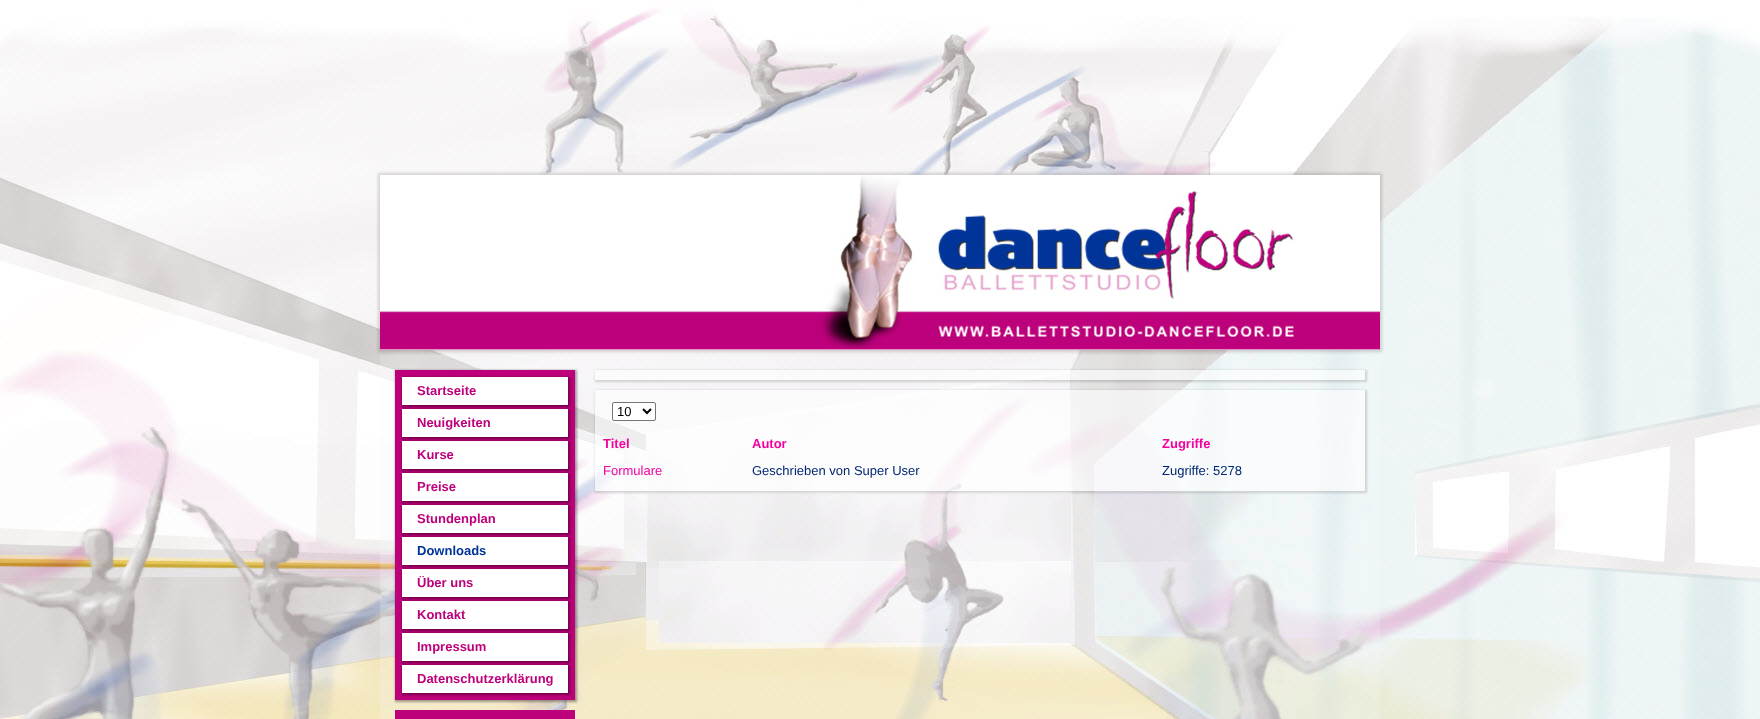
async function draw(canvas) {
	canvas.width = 1760;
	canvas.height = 719;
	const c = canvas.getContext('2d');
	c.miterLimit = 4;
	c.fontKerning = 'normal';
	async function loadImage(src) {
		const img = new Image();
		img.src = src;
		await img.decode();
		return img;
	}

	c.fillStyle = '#fff';
	c.fillRect(0, 0, 1760, 719);
	c.drawImage(await loadImage('img1.png'), 0, 0, 1760, 719);
	c.fillStyle = '#00000026';
	c.filter = 'blur(1.5px)';
	c.beginPath();
	c.rect(378, 173, 1004, 179);
	c.fill();
	c.filter = 'none';
	c.drawImage(await loadImage('img2.png'), 380, 175, 1000, 175);
	c.fillStyle = '#fafcff33';
	c.fillRect(380, 355, 1000, 364);
	c.fillStyle = '#00000059';
	c.filter = 'blur(1px)';
	c.beginPath();
	c.rect(395, 370, 182, 332);
	c.fill();
	c.filter = 'none';
	c.fillStyle = '#bc017a';
	c.fillRect(395, 370, 180, 330);
	c.fillStyle = '#00000059';
	c.filter = 'blur(1px)';
	c.beginPath();
	c.rect(402, 377, 168, 30);
	c.fill();
	c.filter = 'none';
	c.fillStyle = '#fff';
	c.fillRect(402, 377, 166, 28);
	c.font = 'bold 13px Liberation Sans';
	c.fillStyle = '#bc017a';
	c.fillText('Startseite', 417, 395);
	c.fillStyle = '#00000059';
	c.filter = 'blur(1px)';
	c.beginPath();
	c.rect(402, 409, 168, 30);
	c.fill();
	c.filter = 'none';
	c.fillStyle = '#fff';
	c.fillRect(402, 409, 166, 28);
	c.fillStyle = '#bc017a';
	c.fillText('Neuigkeiten', 417, 427);
	c.fillStyle = '#00000059';
	c.filter = 'blur(1px)';
	c.beginPath();
	c.rect(402, 441, 168, 30);
	c.fill();
	c.filter = 'none';
	c.fillStyle = '#fff';
	c.fillRect(402, 441, 166, 28);
	c.fillStyle = '#bc017a';
	c.fillText('Kurse', 417, 459);
	c.fillStyle = '#00000059';
	c.filter = 'blur(1px)';
	c.beginPath();
	c.rect(402, 473, 168, 30);
	c.fill();
	c.filter = 'none';
	c.fillStyle = '#fff';
	c.fillRect(402, 473, 166, 28);
	c.fillStyle = '#bc017a';
	c.fillText('Preise', 417, 491);
	c.fillStyle = '#00000059';
	c.filter = 'blur(1px)';
	c.beginPath();
	c.rect(402, 505, 168, 30);
	c.fill();
	c.filter = 'none';
	c.fillStyle = '#fff';
	c.fillRect(402, 505, 166, 28);
	c.fillStyle = '#bc017a';
	c.fillText('Stundenplan', 417, 523);
	c.fillStyle = '#00000059';
	c.filter = 'blur(1px)';
	c.beginPath();
	c.rect(402, 537, 168, 30);
	c.fill();
	c.filter = 'none';
	c.fillStyle = '#fff';
	c.fillRect(402, 537, 166, 28);
	c.fillStyle = '#039';
	c.fillText('Downloads', 417, 555);
	c.fillStyle = '#00000059';
	c.filter = 'blur(1px)';
	c.beginPath();
	c.rect(402, 569, 168, 30);
	c.fill();
	c.filter = 'none';
	c.fillStyle = '#fff';
	c.fillRect(402, 569, 166, 28);
	c.fillStyle = '#bc017a';
	c.fillText('Über uns', 417, 587);
	c.fillStyle = '#00000059';
	c.filter = 'blur(1px)';
	c.beginPath();
	c.rect(402, 601, 168, 30);
	c.fill();
	c.filter = 'none';
	c.fillStyle = '#fff';
	c.fillRect(402, 601, 166, 28);
	c.fillStyle = '#bc017a';
	c.fillText('Kontakt', 417, 619);
	c.fillStyle = '#00000059';
	c.filter = 'blur(1px)';
	c.beginPath();
	c.rect(402, 633, 168, 30);
	c.fill();
	c.filter = 'none';
	c.fillStyle = '#fff';
	c.fillRect(402, 633, 166, 28);
	c.fillStyle = '#bc017a';
	c.fillText('Impressum', 417, 651);
	c.fillStyle = '#00000059';
	c.filter = 'blur(1px)';
	c.beginPath();
	c.rect(402, 665, 168, 30);
	c.fill();
	c.filter = 'none';
	c.fillStyle = '#fff';
	c.fillRect(402, 665, 166, 28);
	c.fillStyle = '#bc017a';
	c.fillText('Datenschutzerklärung', 417, 683);
	c.fillRect(395, 710, 180, 9);
	c.save();
	c.beginPath();
	c.moveTo(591, 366);
	c.lineTo(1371, 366);
	c.lineTo(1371, 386);
	c.lineTo(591, 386);
	c.closePath();
	c.moveTo(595, 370);
	c.lineTo(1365, 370);
	c.lineTo(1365, 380);
	c.lineTo(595, 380);
	c.closePath();
	c.clip('evenodd');
	c.fillStyle = '#00000026';
	c.filter = 'blur(1px)';
	c.beginPath();
	c.rect(595, 370, 772, 12);
	c.fill();
	c.filter = 'none';
	c.restore();
	c.fillStyle = '#ffffff99';
	c.fillRect(595, 370, 770, 10);
	c.save();
	c.beginPath();
	c.moveTo(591, 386);
	c.lineTo(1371, 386);
	c.lineTo(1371, 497);
	c.lineTo(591, 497);
	c.closePath();
	c.moveTo(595, 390);
	c.lineTo(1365, 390);
	c.lineTo(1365, 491);
	c.lineTo(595, 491);
	c.closePath();
	c.clip('evenodd');
	c.fillStyle = '#00000026';
	c.filter = 'blur(1px)';
	c.beginPath();
	c.rect(595, 390, 772, 103);
	c.fill();
	c.filter = 'none';
	c.restore();
	c.fillRect(595, 390, 770, 101);
	c.fillStyle = '#fff';
	c.beginPath();
	c.roundRect(612.5, 402.5, 43, 18, 1.5);
	c.fill();
	c.strokeStyle = '#767676';
	c.stroke();
	c.beginPath();
	c.moveTo(643, 409);
	c.lineTo(647, 413);
	c.lineTo(651, 409);
	c.strokeStyle = '#000';
	c.lineWidth = 2;
	c.stroke();
	c.font = '13px Liberation Sans';
	c.fillStyle = '#000';
	c.fillText('10', 617, 416);
	c.font = 'bold 13px Liberation Sans';
	c.fillStyle = '#f4019f';
	for (const [text, x, y] of [
		['Titel', 603, 448],
		['Autor', 752, 448],
		['Zugriffe', 1162, 448],
	]) {
		c.fillText(text, x, y);
	}
	c.font = '13px Liberation Sans';
	c.fillText('Formulare', 603, 475);
	c.fillStyle = '#002775';
	c.fillText('Geschrieben von Super User', 752, 475);
	c.fillText('Zugriffe: 5278', 1162, 475);
}

draw(document.querySelector('canvas'));
